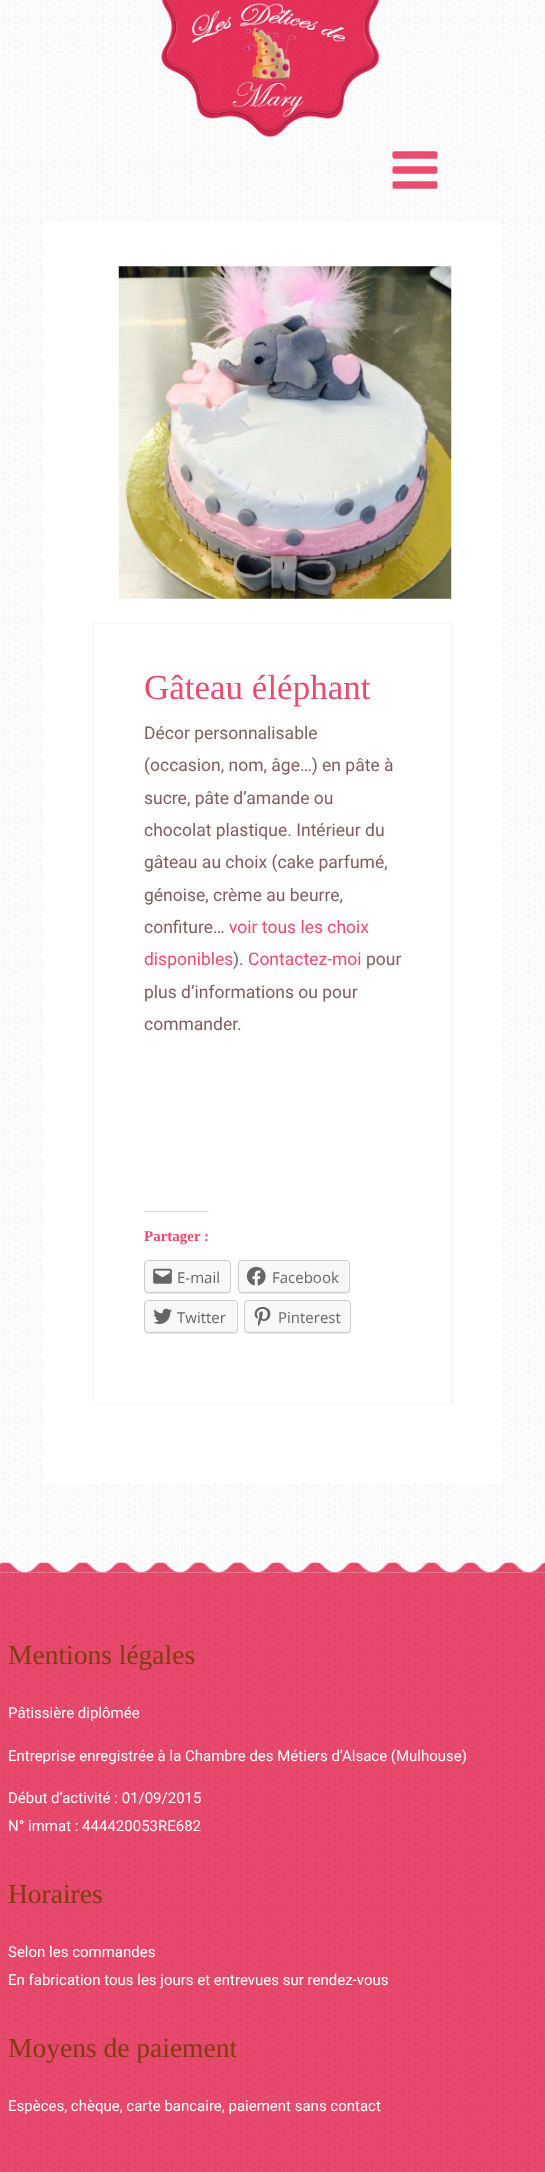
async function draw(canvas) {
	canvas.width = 545;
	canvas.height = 2172;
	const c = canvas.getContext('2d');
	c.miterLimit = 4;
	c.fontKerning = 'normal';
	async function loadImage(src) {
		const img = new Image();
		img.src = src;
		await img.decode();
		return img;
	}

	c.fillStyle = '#fff';
	c.fillRect(0, 0, 545, 2172);
	c.drawImage(await loadImage('img1.png'), 0, 0, 545, 1573);
	c.drawImage(await loadImage('img3.png'), 0, 45, 545, 109);
	c.drawImage(await loadImage('img2.png'), 161, 0, 219, 138);
	c.drawImage(await loadImage('img4.png'), 392, 151, 46, 38);
	c.fillRect(44, 221, 457, 1263);
	c.drawImage(await loadImage('img5.png'), 118, 266, 334, 333);
	c.fillStyle = '#f5f5f5';
	c.filter = 'blur(0.5px)';
	c.beginPath();
	c.rect(93, 623, 360, 781);
	c.fill();
	c.filter = 'none';
	c.fillStyle = '#fff';
	c.fillRect(94, 624, 357, 779);
	c.font = '35px Liberation Serif';
	c.fillStyle = '#e94c6e';
	c.fillText('Gâteau éléphant', 144, 699);
	c.font = '17.5px Roboto';
	c.fillStyle = '#7c5e60';
	for (const [text, x, y] of [
		['Décor personnalisable', 144, 739],
		['(occasion, nom, âge…) en pâte à', 144, 771],
		['sucre, pâte d’amande ou', 144, 804],
		['chocolat plastique. Intérieur du', 144, 836],
		['gâteau au choix (cake parfumé,', 144, 868],
		['génoise, crème au beurre,', 144, 901],
		['confiture…', 144, 933],
	]) {
		c.fillText(text, x, y);
	}
	c.fillStyle = '#e94c6e';
	c.fillText('voir tous les choix', 229, 933);
	c.fillText('disponibles', 144, 965);
	c.fillStyle = '#7c5e60';
	c.fillText(').', 233, 965);
	c.fillStyle = '#e94c6e';
	c.fillText('Contactez-moi', 248, 965);
	c.fillStyle = '#7c5e60';
	for (const [text, x, y] of [
		['pour', 366, 965],
		['plus d’informations ou pour', 144, 998],
		['commander.', 144, 1030],
	]) {
		c.fillText(text, x, y);
	}
	c.fillStyle = '#dcdcde';
	c.fillRect(144, 1211, 65, 1);
	c.font = 'bold 15px Liberation Serif';
	c.fillStyle = '#e94c6e';
	c.fillText('Partager :', 144, 1241);
	c.fillStyle = '#ebebeb';
	c.beginPath();
	c.moveTo(144, 1290);
	c.bezierCurveTo(144, 1292, 146, 1294, 148, 1294);
	c.lineTo(227, 1294);
	c.bezierCurveTo(229, 1294, 231, 1292, 231, 1290);
	c.bezierCurveTo(230, 1292, 229, 1292, 228, 1292);
	c.lineTo(148, 1292);
	c.bezierCurveTo(146, 1292, 145, 1292, 144, 1290);
	c.closePath();
	c.fill();
	c.fillStyle = '#f8f8f8';
	c.beginPath();
	c.roundRect(144.5, 1260.5, 86, 32, 3.5);
	c.fill();
	c.strokeStyle = '#ccc';
	c.stroke();
	c.drawImage(await loadImage('img6.png'), 153, 1268, 19, 16);
	c.font = '15px Open Sans';
	c.fillStyle = '#656565';
	c.fillText('E-mail', 177, 1283);
	c.fillStyle = '#ebebeb';
	c.beginPath();
	c.moveTo(238, 1291);
	c.bezierCurveTo(238, 1293, 240, 1294, 242, 1294);
	c.lineTo(346, 1294);
	c.bezierCurveTo(348, 1294, 350, 1292, 350, 1290);
	c.lineTo(350, 1289);
	c.bezierCurveTo(350, 1291, 348, 1292, 346, 1292);
	c.lineTo(241, 1292);
	c.bezierCurveTo(240, 1292, 239, 1292, 238, 1291);
	c.closePath();
	c.fill();
	c.fillStyle = '#f8f8f8';
	c.beginPath();
	c.roundRect(238.5, 1260.5, 111, 32, 3.5);
	c.fill();
	c.stroke();
	c.drawImage(await loadImage('img7.png'), 246, 1266, 20, 20);
	c.fillStyle = '#656565';
	c.fillText('Facebook', 272, 1283);
	c.fillStyle = '#ebebeb';
	c.beginPath();
	c.moveTo(144, 1330);
	c.bezierCurveTo(144, 1332, 146, 1334, 148, 1334);
	c.lineTo(234, 1334);
	c.bezierCurveTo(236, 1334, 238, 1332, 238, 1330);
	c.lineTo(238, 1305);
	c.lineTo(237, 1303);
	c.lineTo(238, 1320);
	c.bezierCurveTo(238, 1336, 238, 1332, 219, 1332);
	c.lineTo(162, 1332);
	c.bezierCurveTo(158, 1332, 146, 1335, 144, 1330);
	c.closePath();
	c.fill();
	c.fillStyle = '#f8f8f8';
	c.beginPath();
	c.roundRect(144.5, 1300.5, 93, 32, 3.5);
	c.fill();
	c.stroke();
	c.drawImage(await loadImage('img8.png'), 153, 1308, 19, 16);
	c.fillStyle = '#656565';
	c.fillText('Twitter', 177, 1323);
	c.fillStyle = '#ebebeb';
	c.beginPath();
	c.moveTo(244, 1330);
	c.bezierCurveTo(244, 1332, 246, 1334, 248, 1334);
	c.lineTo(347, 1334);
	c.bezierCurveTo(349, 1334, 351, 1332, 351, 1330);
	c.bezierCurveTo(350, 1332, 349, 1332, 348, 1332);
	c.lineTo(248, 1332);
	c.bezierCurveTo(246, 1332, 245, 1332, 244, 1330);
	c.closePath();
	c.fill();
	c.fillStyle = '#f8f8f8';
	c.beginPath();
	c.roundRect(244.5, 1300.5, 106, 32, 3.5);
	c.fill();
	c.stroke();
	c.drawImage(await loadImage('img9.png'), 254, 1306, 17, 21);
	c.fillStyle = '#656565';
	c.fillText('Pinterest', 278, 1323);
	c.drawImage(await loadImage('img10.png'), 0, 1572, 545, 600);
	c.drawImage(await loadImage('img11.png'), 0, 1562, 545, 11);
	c.font = '27.5px Liberation Serif';
	c.fillStyle = '#813c0e';
	c.fillText('Mentions légales', 8, 1664);
	c.font = '15px Roboto';
	c.fillStyle = '#fff';
	for (const [text, x, y] of [
		['Pâtissière diplômée', 8, 1718],
		['Entreprise enregistrée à la Chambre des Métiers d’Alsace (Mulhouse)', 8, 1761],
		['Début d’activité : 01/09/2015', 8, 1803],
		['N° immat : 444420053RE682', 8, 1831],
	]) {
		c.fillText(text, x, y);
	}
	c.font = '27.5px Liberation Serif';
	c.fillStyle = '#813c0e';
	c.fillText('Horaires', 8, 1903);
	c.font = '15px Roboto';
	c.fillStyle = '#fff';
	c.fillText('Selon les commandes', 8, 1957);
	c.fillText('En fabrication tous les jours et entrevues sur rendez-vous', 8, 1985);
	c.font = '27.5px Liberation Serif';
	c.fillStyle = '#813c0e';
	c.fillText('Moyens de paiement', 8, 2057);
	c.font = '15px Roboto';
	c.fillStyle = '#fff';
	c.fillText('Espèces, chèque, carte bancaire, paiement sans contact', 8, 2111);
}

draw(document.querySelector('canvas'));
